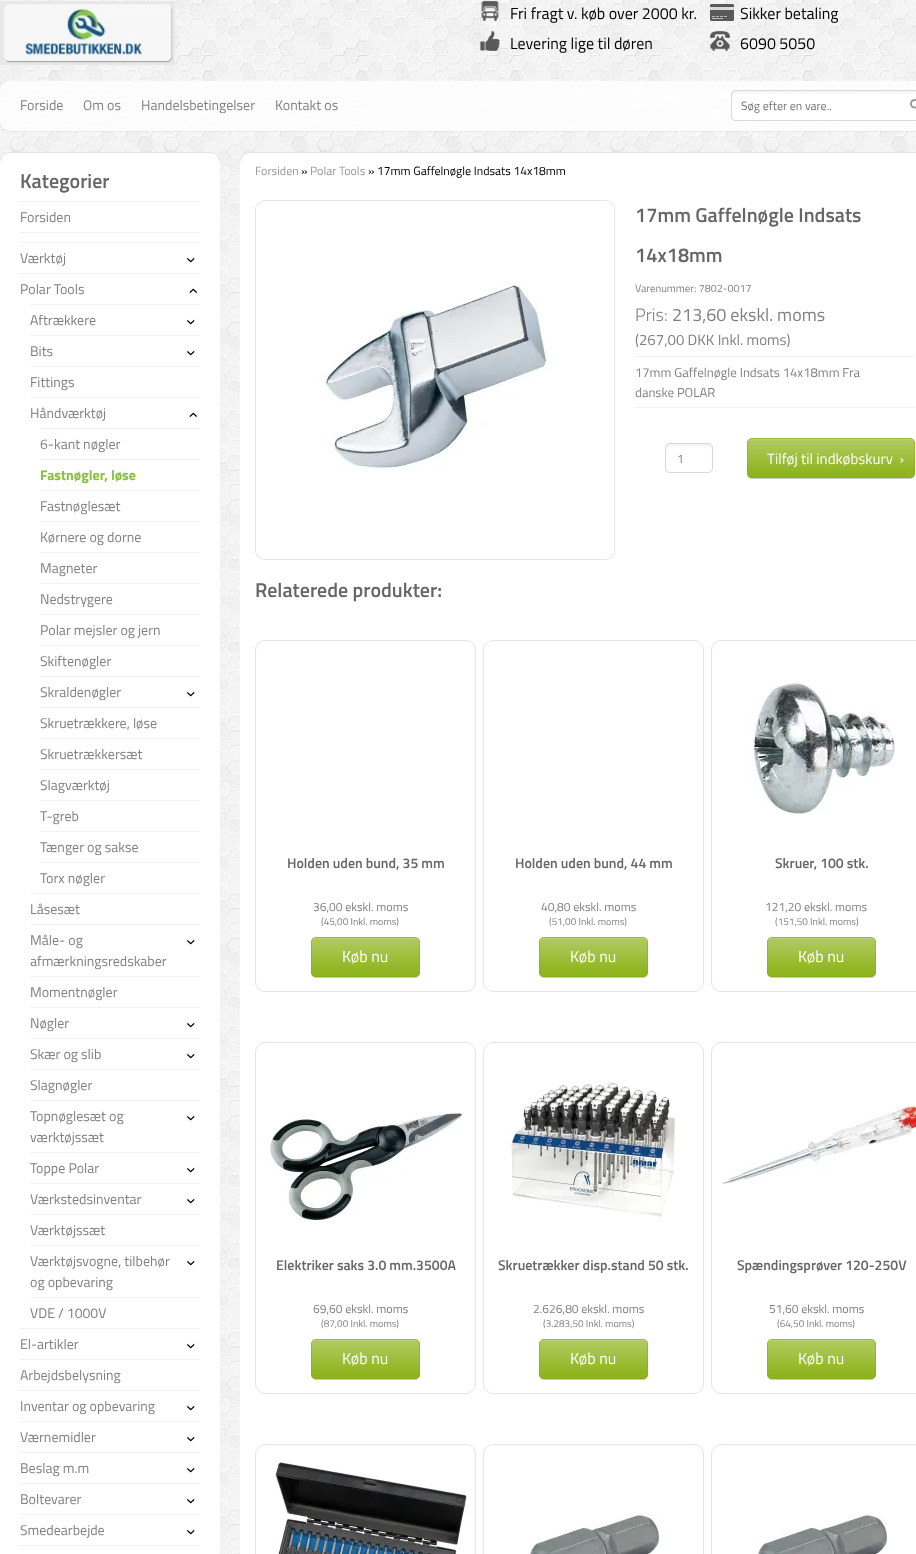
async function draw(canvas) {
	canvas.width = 916;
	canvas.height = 1554;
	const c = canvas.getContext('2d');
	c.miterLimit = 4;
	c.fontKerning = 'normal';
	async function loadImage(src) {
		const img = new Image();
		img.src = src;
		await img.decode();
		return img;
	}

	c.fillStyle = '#fff';
	c.fillRect(0, 0, 916, 1554);
	c.drawImage(await loadImage('img1.png'), 0, 0, 916, 1554);
	c.drawImage(await loadImage('img2.png'), 0, 1, 175, 64);
	c.drawImage(await loadImage('img3.png'), 481, 1, 18, 20);
	c.font = '16px Titillium Web';
	c.fillStyle = '#000';
	c.fillText('Fri fragt v. køb over 2000 kr.', 510, 19);
	c.drawImage(await loadImage('img4.png'), 710, 4, 24, 17);
	c.fillText('Sikker betaling', 740, 19);
	c.drawImage(await loadImage('img5.png'), 480, 31, 20, 20);
	c.fillText('Levering lige til døren', 510, 49);
	c.drawImage(await loadImage('img6.png'), 710, 31, 20, 20);
	c.fillText('6090 5050', 740, 49);
	c.drawImage(await loadImage('img7.png'), 0, 81, 916, 51);
	c.font = '14px Titillium Web';
	c.fillStyle = '#808080';
	for (const [text, x, y] of [
		['Forside', 20, 110],
		['Om os', 83, 110],
		['Handelsbetingelser', 141, 110],
		['Kontakt os', 275, 110],
	]) {
		c.fillText(text, x, y);
	}
	c.drawImage(await loadImage('img8.png'), 731, 90, 169, 31);
	c.drawImage(await loadImage('img9.png'), 731, 90, 4, 31);
	c.font = '12px Titillium Web';
	c.fillStyle = '#757575';
	c.fillText('Søg efter en vare..', 741, 110);
	c.drawImage(await loadImage('img10.png'), 900, 90, 16, 31);
	c.drawImage(await loadImage('img11.png'), 1, 152, 219, 9);
	c.fillStyle = '#fff';
	c.fillRect(0, 161, 220, 1393);
	c.font = '600 20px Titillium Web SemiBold';
	c.fillStyle = '#666';
	c.fillText('Kategorier', 20, 188);
	c.fillStyle = '#f2f2f2';
	c.fillRect(20, 201, 180, 1);
	c.font = '14px Titillium Web';
	c.fillStyle = '#808080';
	c.fillText('Forsiden', 20, 222);
	c.fillStyle = '#f2f2f2';
	c.fillRect(20, 232, 180, 1);
	c.fillRect(20, 242, 180, 1);
	c.fillStyle = '#808080';
	c.fillText('Værktøj', 20, 263);
	c.font = '18px Liberation Sans';
	c.fillStyle = '#000';
	c.save();
	c.translate(186, 257);
	c.rotate(90 * Math.PI / 180);
	c.fillText('›', 0, 0);
	c.restore();
	c.fillStyle = '#f2f2f2';
	c.fillRect(20, 273, 180, 1);
	c.font = '14px Titillium Web';
	c.fillStyle = '#808080';
	c.fillText('Polar Tools', 20, 294);
	c.font = '18px Liberation Sans';
	c.fillStyle = '#000';
	c.save();
	c.translate(198, 294);
	c.rotate(-90 * Math.PI / 180);
	c.fillText('›', 0, 0);
	c.restore();
	c.fillStyle = '#f2f2f2';
	c.fillRect(30, 304, 170, 1);
	c.font = '14px Titillium Web';
	c.fillStyle = '#808080';
	c.fillText('Aftrækkere', 30, 325);
	c.font = '18px Liberation Sans';
	c.fillStyle = '#000';
	c.save();
	c.translate(186, 319);
	c.rotate(90 * Math.PI / 180);
	c.fillText('›', 0, 0);
	c.restore();
	c.fillStyle = '#f2f2f2';
	c.fillRect(30, 335, 170, 1);
	c.font = '14px Titillium Web';
	c.fillStyle = '#808080';
	c.fillText('Bits', 30, 356);
	c.font = '18px Liberation Sans';
	c.fillStyle = '#000';
	c.save();
	c.translate(186, 350);
	c.rotate(90 * Math.PI / 180);
	c.fillText('›', 0, 0);
	c.restore();
	c.fillStyle = '#f2f2f2';
	c.fillRect(30, 366, 170, 1);
	c.font = '14px Titillium Web';
	c.fillStyle = '#808080';
	c.fillText('Fittings', 30, 387);
	c.fillStyle = '#f2f2f2';
	c.fillRect(30, 397, 170, 1);
	c.fillStyle = '#808080';
	c.fillText('Håndværktøj', 30, 418);
	c.font = '18px Liberation Sans';
	c.fillStyle = '#000';
	c.save();
	c.translate(198, 418);
	c.rotate(-90 * Math.PI / 180);
	c.fillText('›', 0, 0);
	c.restore();
	c.fillStyle = '#f2f2f2';
	c.fillRect(40, 428, 160, 1);
	c.font = '14px Titillium Web';
	c.fillStyle = '#808080';
	c.fillText('6-kant nøgler', 40, 449);
	c.fillStyle = '#f2f2f2';
	c.fillRect(40, 459, 160, 1);
	c.font = 'bold 14px Titillium Web';
	c.fillStyle = '#86c142';
	c.fillText('Fastnøgler, løse', 40, 480);
	c.fillStyle = '#f2f2f2';
	c.fillRect(40, 490, 160, 1);
	c.font = '14px Titillium Web';
	c.fillStyle = '#808080';
	c.fillText('Fastnøglesæt', 40, 511);
	c.fillStyle = '#f2f2f2';
	c.fillRect(40, 521, 160, 1);
	c.fillStyle = '#808080';
	c.fillText('Kørnere og dorne', 40, 542);
	c.fillStyle = '#f2f2f2';
	c.fillRect(40, 552, 160, 1);
	c.fillStyle = '#808080';
	c.fillText('Magneter', 40, 573);
	c.fillStyle = '#f2f2f2';
	c.fillRect(40, 583, 160, 1);
	c.fillStyle = '#808080';
	c.fillText('Nedstrygere', 40, 604);
	c.fillStyle = '#f2f2f2';
	c.fillRect(40, 614, 160, 1);
	c.fillStyle = '#808080';
	c.fillText('Polar mejsler og jern', 40, 635);
	c.fillStyle = '#f2f2f2';
	c.fillRect(40, 645, 160, 1);
	c.fillStyle = '#808080';
	c.fillText('Skiftenøgler', 40, 666);
	c.fillStyle = '#f2f2f2';
	c.fillRect(40, 676, 160, 1);
	c.fillStyle = '#808080';
	c.fillText('Skraldenøgler', 40, 697);
	c.font = '18px Liberation Sans';
	c.fillStyle = '#000';
	c.save();
	c.translate(186, 691);
	c.rotate(90 * Math.PI / 180);
	c.fillText('›', 0, 0);
	c.restore();
	c.fillStyle = '#f2f2f2';
	c.fillRect(40, 707, 160, 1);
	c.font = '14px Titillium Web';
	c.fillStyle = '#808080';
	c.fillText('Skruetrækkere, løse', 40, 728);
	c.fillStyle = '#f2f2f2';
	c.fillRect(40, 738, 160, 1);
	c.fillStyle = '#808080';
	c.fillText('Skruetrækkersæt', 40, 759);
	c.fillStyle = '#f2f2f2';
	c.fillRect(40, 769, 160, 1);
	c.fillStyle = '#808080';
	c.fillText('Slagværktøj', 40, 790);
	c.fillStyle = '#f2f2f2';
	c.fillRect(40, 800, 160, 1);
	c.fillStyle = '#808080';
	c.fillText('T-greb', 40, 821);
	c.fillStyle = '#f2f2f2';
	c.fillRect(40, 831, 160, 1);
	c.fillStyle = '#808080';
	c.fillText('Tænger og sakse', 40, 852);
	c.fillStyle = '#f2f2f2';
	c.fillRect(40, 862, 160, 1);
	c.fillStyle = '#808080';
	c.fillText('Torx nøgler', 40, 883);
	c.fillStyle = '#f2f2f2';
	c.fillRect(30, 893, 170, 1);
	c.fillStyle = '#808080';
	c.fillText('Låsesæt', 30, 914);
	c.fillStyle = '#f2f2f2';
	c.fillRect(30, 924, 170, 1);
	c.fillStyle = '#808080';
	c.fillText('Måle- og', 30, 945);
	c.font = '18px Liberation Sans';
	c.fillStyle = '#000';
	c.save();
	c.translate(186, 939);
	c.rotate(90 * Math.PI / 180);
	c.fillText('›', 0, 0);
	c.restore();
	c.font = '14px Titillium Web';
	c.fillStyle = '#808080';
	c.fillText('afmærkningsredskaber', 30, 966);
	c.fillStyle = '#f2f2f2';
	c.fillRect(30, 976, 170, 1);
	c.fillStyle = '#808080';
	c.fillText('Momentnøgler', 30, 997);
	c.fillStyle = '#f2f2f2';
	c.fillRect(30, 1007, 170, 1);
	c.fillStyle = '#808080';
	c.fillText('Nøgler', 30, 1028);
	c.font = '18px Liberation Sans';
	c.fillStyle = '#000';
	c.save();
	c.translate(186, 1022);
	c.rotate(90 * Math.PI / 180);
	c.fillText('›', 0, 0);
	c.restore();
	c.fillStyle = '#f2f2f2';
	c.fillRect(30, 1038, 170, 1);
	c.font = '14px Titillium Web';
	c.fillStyle = '#808080';
	c.fillText('Skær og slib', 30, 1059);
	c.font = '18px Liberation Sans';
	c.fillStyle = '#000';
	c.save();
	c.translate(186, 1053);
	c.rotate(90 * Math.PI / 180);
	c.fillText('›', 0, 0);
	c.restore();
	c.fillStyle = '#f2f2f2';
	c.fillRect(30, 1069, 170, 1);
	c.font = '14px Titillium Web';
	c.fillStyle = '#808080';
	c.fillText('Slagnøgler', 30, 1090);
	c.fillStyle = '#f2f2f2';
	c.fillRect(30, 1100, 170, 1);
	c.fillStyle = '#808080';
	c.fillText('Topnøglesæt og', 30, 1121);
	c.font = '18px Liberation Sans';
	c.fillStyle = '#000';
	c.save();
	c.translate(186, 1115);
	c.rotate(90 * Math.PI / 180);
	c.fillText('›', 0, 0);
	c.restore();
	c.font = '14px Titillium Web';
	c.fillStyle = '#808080';
	c.fillText('værktøjssæt', 30, 1142);
	c.fillStyle = '#f2f2f2';
	c.fillRect(30, 1152, 170, 1);
	c.fillStyle = '#808080';
	c.fillText('Toppe Polar', 30, 1173);
	c.font = '18px Liberation Sans';
	c.fillStyle = '#000';
	c.save();
	c.translate(186, 1167);
	c.rotate(90 * Math.PI / 180);
	c.fillText('›', 0, 0);
	c.restore();
	c.fillStyle = '#f2f2f2';
	c.fillRect(30, 1183, 170, 1);
	c.font = '14px Titillium Web';
	c.fillStyle = '#808080';
	c.fillText('Værkstedsinventar', 30, 1204);
	c.font = '18px Liberation Sans';
	c.fillStyle = '#000';
	c.save();
	c.translate(186, 1198);
	c.rotate(90 * Math.PI / 180);
	c.fillText('›', 0, 0);
	c.restore();
	c.fillStyle = '#f2f2f2';
	c.fillRect(30, 1214, 170, 1);
	c.font = '14px Titillium Web';
	c.fillStyle = '#808080';
	c.fillText('Værktøjssæt', 30, 1235);
	c.fillStyle = '#f2f2f2';
	c.fillRect(30, 1245, 170, 1);
	c.fillStyle = '#808080';
	c.fillText('Værktøjsvogne, tilbehør', 30, 1266);
	c.font = '18px Liberation Sans';
	c.fillStyle = '#000';
	c.save();
	c.translate(186, 1260);
	c.rotate(90 * Math.PI / 180);
	c.fillText('›', 0, 0);
	c.restore();
	c.font = '14px Titillium Web';
	c.fillStyle = '#808080';
	c.fillText('og opbevaring', 30, 1287);
	c.fillStyle = '#f2f2f2';
	c.fillRect(30, 1297, 170, 1);
	c.fillStyle = '#808080';
	c.fillText('VDE / 1000V', 30, 1318);
	c.fillStyle = '#f2f2f2';
	c.fillRect(20, 1328, 180, 1);
	c.fillStyle = '#808080';
	c.fillText('El-artikler', 20, 1349);
	c.font = '18px Liberation Sans';
	c.fillStyle = '#000';
	c.save();
	c.translate(186, 1343);
	c.rotate(90 * Math.PI / 180);
	c.fillText('›', 0, 0);
	c.restore();
	c.fillStyle = '#f2f2f2';
	c.fillRect(20, 1359, 180, 1);
	c.font = '14px Titillium Web';
	c.fillStyle = '#808080';
	c.fillText('Arbejdsbelysning', 20, 1380);
	c.fillStyle = '#f2f2f2';
	c.fillRect(20, 1390, 180, 1);
	c.fillStyle = '#808080';
	c.fillText('Inventar og opbevaring', 20, 1411);
	c.font = '18px Liberation Sans';
	c.fillStyle = '#000';
	c.save();
	c.translate(186, 1405);
	c.rotate(90 * Math.PI / 180);
	c.fillText('›', 0, 0);
	c.restore();
	c.fillStyle = '#f2f2f2';
	c.fillRect(20, 1421, 180, 1);
	c.font = '14px Titillium Web';
	c.fillStyle = '#808080';
	c.fillText('Værnemidler', 20, 1442);
	c.font = '18px Liberation Sans';
	c.fillStyle = '#000';
	c.save();
	c.translate(186, 1436);
	c.rotate(90 * Math.PI / 180);
	c.fillText('›', 0, 0);
	c.restore();
	c.fillStyle = '#f2f2f2';
	c.fillRect(20, 1452, 180, 1);
	c.font = '14px Titillium Web';
	c.fillStyle = '#808080';
	c.fillText('Beslag m.m', 20, 1473);
	c.font = '18px Liberation Sans';
	c.fillStyle = '#000';
	c.save();
	c.translate(186, 1467);
	c.rotate(90 * Math.PI / 180);
	c.fillText('›', 0, 0);
	c.restore();
	c.fillStyle = '#f2f2f2';
	c.fillRect(20, 1483, 180, 1);
	c.font = '14px Titillium Web';
	c.fillStyle = '#808080';
	c.fillText('Boltevarer', 20, 1504);
	c.font = '18px Liberation Sans';
	c.fillStyle = '#000';
	c.save();
	c.translate(186, 1498);
	c.rotate(90 * Math.PI / 180);
	c.fillText('›', 0, 0);
	c.restore();
	c.fillStyle = '#f2f2f2';
	c.fillRect(20, 1514, 180, 1);
	c.font = '14px Titillium Web';
	c.fillStyle = '#808080';
	c.fillText('Smedearbejde', 20, 1535);
	c.font = '18px Liberation Sans';
	c.fillStyle = '#000';
	c.save();
	c.translate(186, 1529);
	c.rotate(90 * Math.PI / 180);
	c.fillText('›', 0, 0);
	c.restore();
	c.fillStyle = '#f2f2f2';
	c.fillRect(20, 1545, 180, 1);
	c.drawImage(await loadImage('img12.png'), 240, 152, 676, 9);
	c.fillStyle = '#fff';
	c.fillRect(240, 161, 676, 1393);
	c.font = '12px Titillium Web';
	c.fillStyle = '#999';
	c.fillText('Forsiden', 255, 175);
	c.fillStyle = '#000';
	c.fillText('»', 301, 175);
	c.fillStyle = '#999';
	c.fillText('Polar Tools', 310, 175);
	c.fillStyle = '#000';
	c.fillText('» 17mm Gaffelnøgle Indsats 14x18mm', 368, 175);
	c.beginPath();
	c.roundRect(255.5, 200.5, 359, 359, 9.5);
	c.strokeStyle = '#e5e5e5';
	c.stroke();
	c.drawImage(await loadImage('img13.png'), 256, 201, 358, 358);
	c.font = '600 20px Titillium Web SemiBold';
	c.fillStyle = '#666';
	c.fillText('17mm Gaffelnøgle Indsats', 635, 222);
	c.fillText('14x18mm', 635, 262);
	c.font = '10.75px Titillium Web';
	c.fillStyle = '#808080';
	c.fillText('Varenummer: 7802-0017', 635, 292);
	c.font = '300 18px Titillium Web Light';
	c.fillText('Pris:', 635, 321);
	c.font = '18px Titillium Web';
	c.fillText('213,60 ekskl. moms', 672, 321);
	c.font = '15px Titillium Web';
	c.fillText('(267,00 DKK Inkl. moms)', 635, 345);
	c.fillStyle = '#f2f2f2';
	c.fillRect(635, 356, 280, 1);
	c.font = '13px Titillium Web';
	c.fillStyle = '#808080';
	c.fillText('17mm Gaffelnøgle Indsats 14x18mm Fra', 635, 377);
	c.fillText('danske POLAR', 635, 397);
	c.fillStyle = '#f2f2f2';
	c.fillRect(635, 407, 280, 1);
	c.drawImage(await loadImage('img14.png'), 665, 443, 48, 30);
	c.font = '12px Titillium Web';
	c.fillStyle = '#808080';
	c.fillText('1', 677, 463);
	c.drawImage(await loadImage('img15.png'), 747, 438, 168, 41);
	c.font = '15px Titillium Web';
	c.fillStyle = '#fff';
	c.fillText('Tilføj til indkøbskurv  ›', 767, 464);
	c.font = '600 20px Titillium Web SemiBold';
	c.fillStyle = '#666';
	c.fillText('Relaterede produkter:', 255, 597);
	c.beginPath();
	c.roundRect(255.5, 640.5, 220, 351, 9.5);
	c.stroke();
	c.font = '600 14px Titillium Web SemiBold';
	c.fillText('Holden uden bund, 35 mm', 287, 868);
	c.font = '12px Titillium Web';
	c.fillStyle = '#808080';
	c.fillText('36,00 ekskl. moms', 313, 911);
	c.font = '10px Titillium Web';
	c.fillText('(45,00 Inkl. moms)', 321, 925);
	c.drawImage(await loadImage('img16.png'), 311, 937, 109, 41);
	c.font = '16px Titillium Web';
	c.fillStyle = '#fff';
	c.fillText('Køb nu', 342, 962);
	c.beginPath();
	c.roundRect(483.5, 640.5, 220, 351, 9.5);
	c.stroke();
	c.font = '600 14px Titillium Web SemiBold';
	c.fillStyle = '#666';
	c.fillText('Holden uden bund, 44 mm', 515, 868);
	c.font = '12px Titillium Web';
	c.fillStyle = '#808080';
	c.fillText('40,80 ekskl. moms', 541, 911);
	c.font = '10px Titillium Web';
	c.fillText('(51,00 Inkl. moms)', 549, 925);
	c.drawImage(await loadImage('img16.png'), 539, 937, 109, 41);
	c.font = '16px Titillium Web';
	c.fillStyle = '#fff';
	c.fillText('Køb nu', 570, 962);
	c.beginPath();
	c.roundRect(711.5, 640.5, 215, 351, 9.5);
	c.stroke();
	c.drawImage(await loadImage('img17.png'), 751, 682, 144, 132);
	c.font = '600 14px Titillium Web SemiBold';
	c.fillStyle = '#666';
	c.fillText('Skruer, 100 stk.', 775, 868);
	c.font = '12px Titillium Web';
	c.fillStyle = '#808080';
	c.fillText('121,20 ekskl. moms', 765, 911);
	c.font = '10px Titillium Web';
	c.fillText('(151,50 Inkl. moms)', 775, 925);
	c.drawImage(await loadImage('img16.png'), 767, 937, 109, 41);
	c.font = '16px Titillium Web';
	c.fillStyle = '#fff';
	c.fillText('Køb nu', 798, 962);
	c.beginPath();
	c.roundRect(255.5, 1042.5, 220, 351, 9.5);
	c.stroke();
	c.drawImage(await loadImage('img18.png'), 270, 1112, 197, 108);
	c.font = '600 14px Titillium Web SemiBold';
	c.fillStyle = '#666';
	c.fillText('Elektriker saks 3.0 mm.3500A', 276, 1270);
	c.font = '12px Titillium Web';
	c.fillStyle = '#808080';
	c.fillText('69,60 ekskl. moms', 313, 1313);
	c.font = '10px Titillium Web';
	c.fillText('(87,00 Inkl. moms)', 321, 1327);
	c.drawImage(await loadImage('img16.png'), 311, 1339, 109, 41);
	c.font = '16px Titillium Web';
	c.fillStyle = '#fff';
	c.fillText('Køb nu', 342, 1364);
	c.beginPath();
	c.roundRect(483.5, 1042.5, 220, 351, 9.5);
	c.stroke();
	c.drawImage(await loadImage('img19.png'), 511, 1081, 164, 137);
	c.font = '600 14px Titillium Web SemiBold';
	c.fillStyle = '#666';
	c.fillText('Skruetrækker disp.stand 50 stk.', 498, 1270);
	c.font = '12px Titillium Web';
	c.fillStyle = '#808080';
	c.fillText('2.626,80 ekskl. moms', 533, 1313);
	c.font = '10px Titillium Web';
	c.fillText('(3.283,50 Inkl. moms)', 543, 1327);
	c.drawImage(await loadImage('img16.png'), 539, 1339, 109, 41);
	c.font = '16px Titillium Web';
	c.fillStyle = '#fff';
	c.fillText('Køb nu', 570, 1364);
	c.beginPath();
	c.roundRect(711.5, 1042.5, 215, 351, 9.5);
	c.stroke();
	c.drawImage(await loadImage('img20.png'), 723, 1104, 193, 80);
	c.font = '600 14px Titillium Web SemiBold';
	c.fillStyle = '#666';
	c.fillText('Spændingsprøver 120-250V', 737, 1270);
	c.font = '12px Titillium Web';
	c.fillStyle = '#808080';
	c.fillText('51,60 ekskl. moms', 769, 1313);
	c.font = '10px Titillium Web';
	c.fillText('(64,50 Inkl. moms)', 777, 1327);
	c.drawImage(await loadImage('img16.png'), 767, 1339, 109, 41);
	c.font = '16px Titillium Web';
	c.fillStyle = '#fff';
	c.fillText('Køb nu', 798, 1364);
	c.beginPath();
	c.roundRect(255.5, 1444.5, 220, 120, 9.5);
	c.stroke();
	c.drawImage(await loadImage('img21.png'), 275, 1462, 192, 92);
	c.beginPath();
	c.roundRect(483.5, 1444.5, 220, 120, 9.5);
	c.stroke();
	c.drawImage(await loadImage('img22.png'), 528, 1513, 131, 41);
	c.beginPath();
	c.roundRect(711.5, 1444.5, 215, 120, 9.5);
	c.stroke();
	c.drawImage(await loadImage('img22.png'), 756, 1513, 131, 41);
}

draw(document.querySelector('canvas'));
